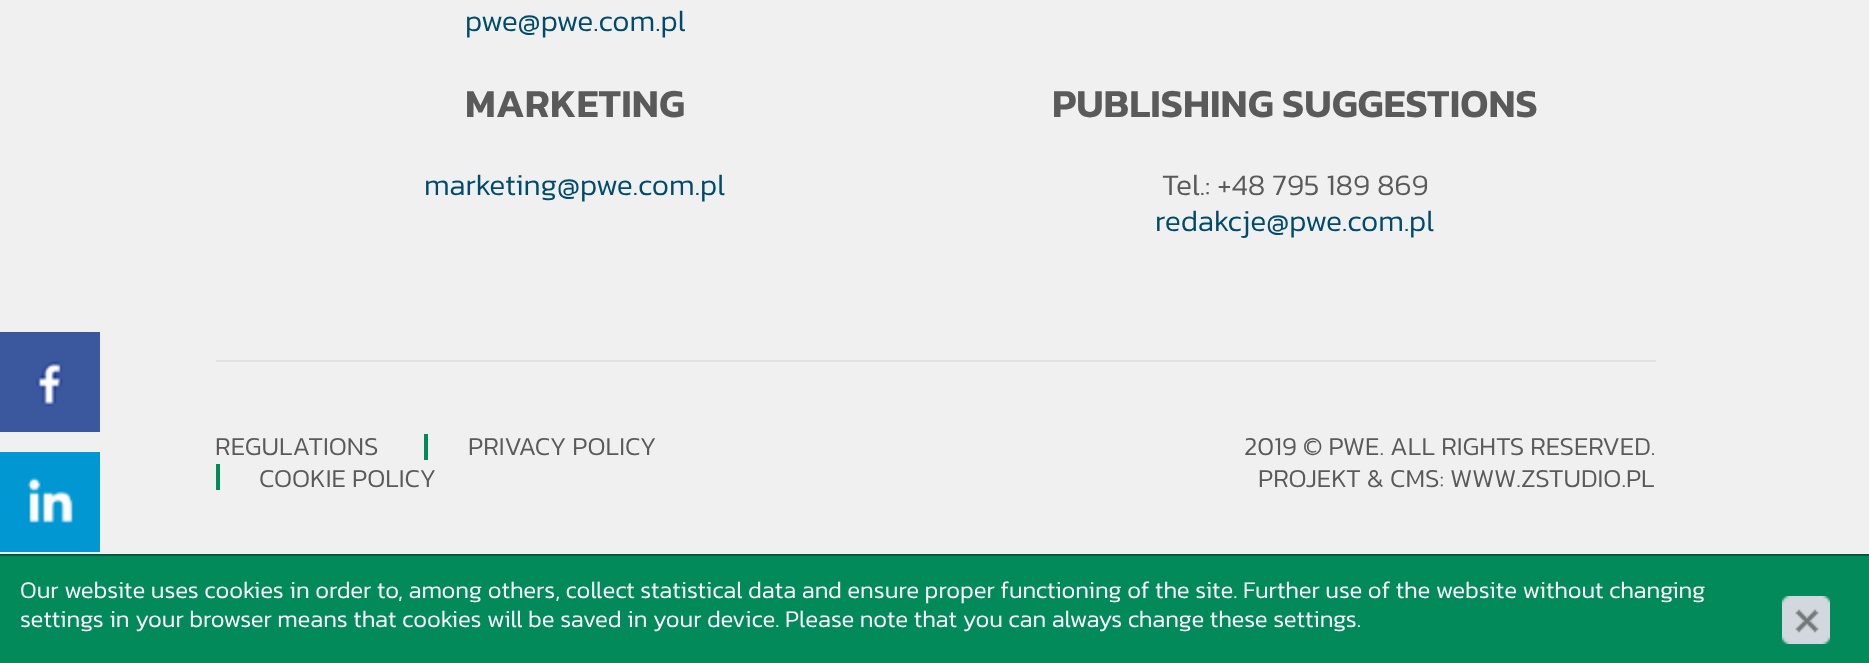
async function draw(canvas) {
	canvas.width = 1869;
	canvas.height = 663;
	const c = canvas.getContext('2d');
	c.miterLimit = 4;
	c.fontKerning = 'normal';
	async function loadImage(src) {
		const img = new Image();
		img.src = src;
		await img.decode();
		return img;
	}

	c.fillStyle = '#f0f0f0';
	c.fillRect(0, 0, 1869, 663);
	c.fillStyle = '#3b579d';
	c.fillRect(0, 332, 100, 100);
	c.drawImage(await loadImage('img1.png'), 36, 361, 27, 45);
	c.fillStyle = '#0097d3';
	c.fillRect(0, 452, 100, 100);
	c.drawImage(await loadImage('img2.png'), 27, 477, 46, 46);
	c.font = '300 30px Kanit';
	c.fillStyle = '#004b6b';
	c.fillText('pwe@pwe.com.pl', 465, 31);
	c.font = '600 40px Kanit';
	c.fillStyle = '#5a5a5a';
	c.fillText('MARKETING', 465, 117);
	c.font = '300 30px Kanit';
	c.fillStyle = '#004b6b';
	c.fillText('marketing@pwe.com.pl', 424, 195);
	c.font = '600 40px Kanit';
	c.fillStyle = '#5a5a5a';
	c.fillText('PUBLISHING SUGGESTIONS', 1052, 117);
	c.font = '300 30px Kanit';
	c.fillText('Tel.: +48 795 189 869', 1162, 195);
	c.fillStyle = '#004b6b';
	c.fillText('redakcje@pwe.com.pl', 1155, 231);
	c.fillStyle = '#e2e2e2';
	c.fillRect(216, 360, 1440, 2);
	c.font = '300 26px Kanit';
	c.fillStyle = '#5a5a5a';
	c.fillText('REGULATIONS', 215, 455);
	c.fillStyle = '#028a5b';
	c.fillRect(424, 434, 4, 26);
	c.fillStyle = '#5a5a5a';
	c.fillText('PRIVACY POLICY', 468, 455);
	c.fillStyle = '#028a5b';
	c.fillRect(216, 464, 4, 26);
	c.fillStyle = '#5a5a5a';
	for (const [text, x, y] of [
		['COOKIE POLICY', 259, 487],
		['2019 © PWE. ALL RIGHTS RESERVED.', 1244, 455],
		['PROJEKT & CMS: WWW.ZSTUDIO.PL', 1258, 487],
	]) {
		c.fillText(text, x, y);
	}
	c.fillStyle = '#028a5b';
	c.fillRect(0, 556, 1869, 107);
	c.fillStyle = '#01583a';
	c.fillRect(0, 554, 1869, 2);
	c.font = '300 24px Kanit';
	c.fillStyle = '#fff';
	c.fillText('Our website uses cookies in order to, among others, collect statistical data and ensure proper functioning of the site. Further use of the website without changing', 20, 598);
	c.fillText('settings in your browser means that cookies will be saved in your device. Please note that you can always change these settings.', 20, 627);
	c.drawImage(await loadImage('img3.png'), 1782, 596, 48, 48);
}

draw(document.querySelector('canvas'));
